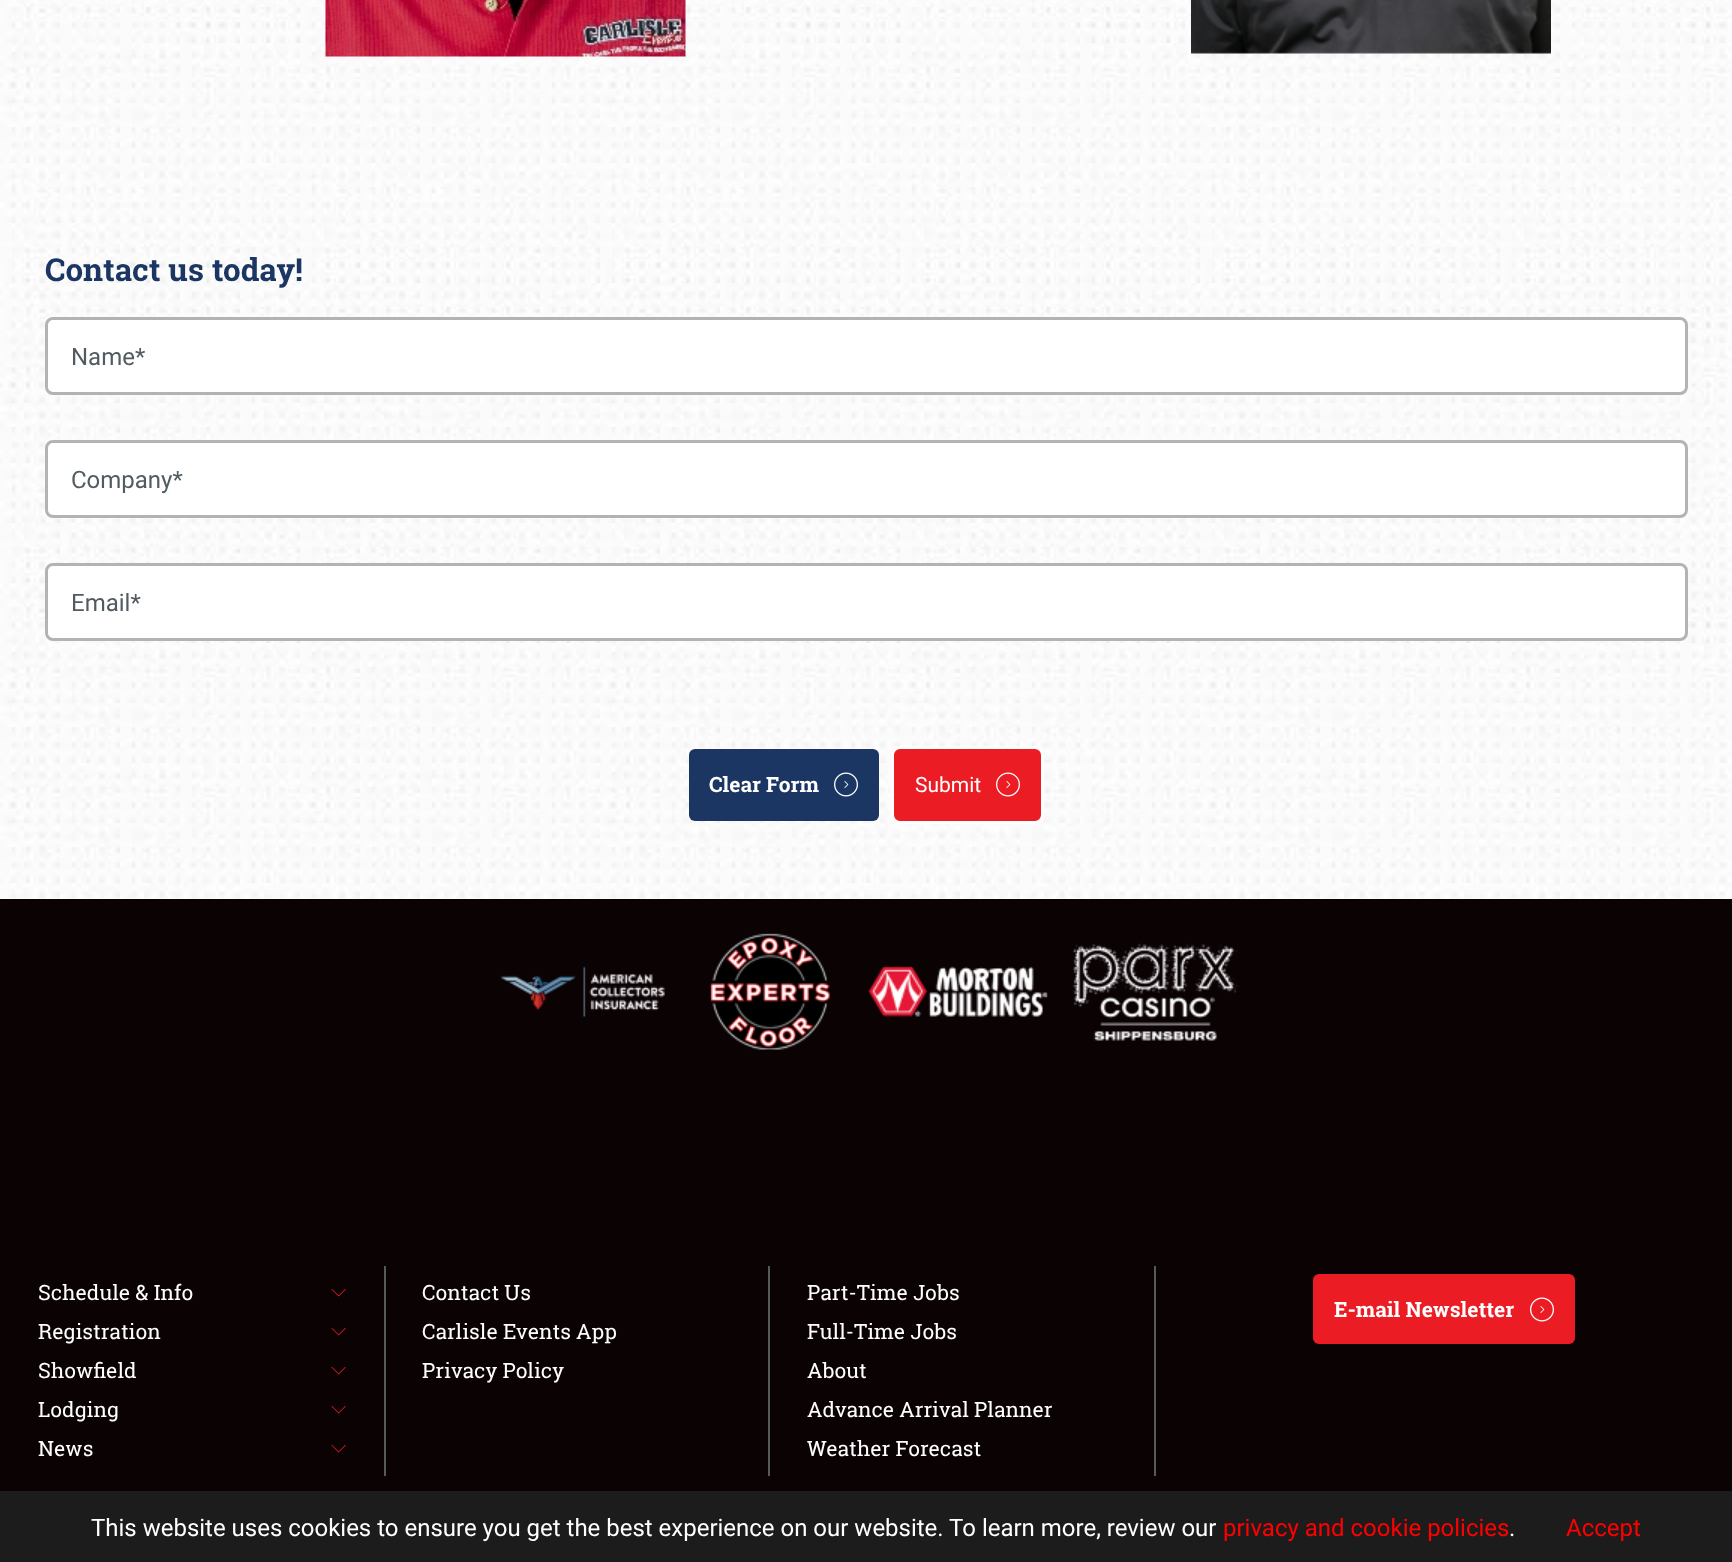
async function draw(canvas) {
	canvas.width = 1732;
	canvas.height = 1562;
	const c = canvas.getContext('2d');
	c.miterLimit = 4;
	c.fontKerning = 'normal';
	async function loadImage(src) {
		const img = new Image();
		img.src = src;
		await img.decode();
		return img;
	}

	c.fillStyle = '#fff';
	c.fillRect(0, 0, 1732, 1562);
	c.drawImage(await loadImage('img1.png'), 0, 0, 1732, 899);
	c.drawImage(await loadImage('img2.png'), 325, 0, 361, 57);
	c.drawImage(await loadImage('img3.png'), 1191, 0, 360, 54);
	c.font = 'bold 31.5px Roboto Slab';
	c.fillStyle = '#1c3664';
	c.fillText('Contact us today!', 45, 281);
	c.fillStyle = '#fff';
	c.beginPath();
	c.roundRect(46.5, 318.5, 1640, 75, 6.5);
	c.fill();
	c.strokeStyle = '#b3b3b3';
	c.lineWidth = 3;
	c.stroke();
	c.font = '24px Roboto';
	c.fillStyle = '#515b60';
	c.fillText('Name*', 71, 365);
	c.fillStyle = '#fff';
	c.beginPath();
	c.roundRect(46.5, 441.5, 1640, 75, 6.5);
	c.fill();
	c.stroke();
	c.fillStyle = '#515b60';
	c.fillText('Company*', 71, 488);
	c.fillStyle = '#fff';
	c.beginPath();
	c.roundRect(46.5, 564.5, 1640, 75, 6.5);
	c.fill();
	c.stroke();
	c.fillStyle = '#515b60';
	c.fillText('Email*', 71, 611);
	c.fillStyle = '#1c3664';
	c.beginPath();
	c.roundRect(689, 749, 190, 72, 6);
	c.fill();
	c.font = 'bold 21px Roboto Slab';
	c.fillStyle = '#fff';
	c.fillText('Clear Form', 709, 792);
	c.drawImage(await loadImage('img4.png'), 834, 772, 24, 25);
	c.fillStyle = '#ec1c24';
	c.beginPath();
	c.roundRect(892.5, 747.5, 150, 75, 7.5);
	c.fill();
	c.strokeStyle = '#fff';
	c.stroke();
	c.font = '21px Roboto';
	c.fillStyle = '#fff';
	c.fillText('Submit', 915, 792);
	c.drawImage(await loadImage('img5.png'), 996, 772, 24, 25);
	c.fillStyle = '#0b0204';
	c.fillRect(0, 899, 1732, 592);
	c.drawImage(await loadImage('img6.png'), 500, 966, 165, 51);
	c.drawImage(await loadImage('img7.png'), 710, 933, 120, 117);
	c.drawImage(await loadImage('img8.png'), 868, 966, 180, 51);
	c.drawImage(await loadImage('img9.png'), 1072, 943, 167, 98);
	c.fillStyle = '#58595b';
	c.fillRect(384, 1266, 2, 210);
	c.font = '21px Roboto Slab';
	c.fillStyle = '#fff';
	c.fillText('Schedule & Info', 38, 1300);
	c.drawImage(await loadImage('img10.png'), 331, 1288, 15, 9);
	c.fillText('Registration', 38, 1339);
	c.drawImage(await loadImage('img10.png'), 331, 1327, 15, 9);
	c.fillText('Showfield', 38, 1378);
	c.drawImage(await loadImage('img10.png'), 331, 1366, 15, 9);
	c.fillText('Lodging', 38, 1417);
	c.drawImage(await loadImage('img10.png'), 331, 1405, 15, 9);
	c.fillText('News', 38, 1456);
	c.drawImage(await loadImage('img10.png'), 331, 1444, 15, 9);
	c.fillStyle = '#58595b';
	c.fillRect(768, 1266, 2, 210);
	c.fillStyle = '#fff';
	for (const [text, x, y] of [
		['Contact Us', 422, 1300],
		['Carlisle Events App', 422, 1339],
		['Privacy Policy', 422, 1378],
	]) {
		c.fillText(text, x, y);
	}
	c.fillStyle = '#58595b';
	c.fillRect(1154, 1266, 2, 210);
	c.fillStyle = '#fff';
	for (const [text, x, y] of [
		['Part-Time Jobs', 807, 1300],
		['Full-Time Jobs', 807, 1339],
		['About', 807, 1378],
		['Advance Arrival Planner', 807, 1417],
		['Weather Forecast', 807, 1456],
	]) {
		c.fillText(text, x, y);
	}
	c.fillStyle = '#ec1c24';
	c.beginPath();
	c.roundRect(1313, 1274, 262, 70, 6);
	c.fill();
	c.font = 'bold 21px Roboto Slab';
	c.fillStyle = '#fff';
	c.fillText('E-mail Newsletter', 1334, 1317);
	c.drawImage(await loadImage('img5.png'), 1530, 1297, 24, 25);
	c.fillStyle = '#1c1c1c';
	c.fillRect(0, 1491, 1732, 71);
	c.font = '24px Roboto';
	c.fillStyle = '#fff';
	c.fillText('This website uses cookies to ensure you get the best experience on our website. To learn more, review our', 91, 1536);
	c.fillStyle = '#f00';
	c.fillText('privacy and cookie policies', 1223, 1536);
	c.fillStyle = '#fff';
	c.fillText('.', 1509, 1536);
	c.fillStyle = '#f00';
	c.fillText('Accept', 1566, 1536);
}

draw(document.querySelector('canvas'));
